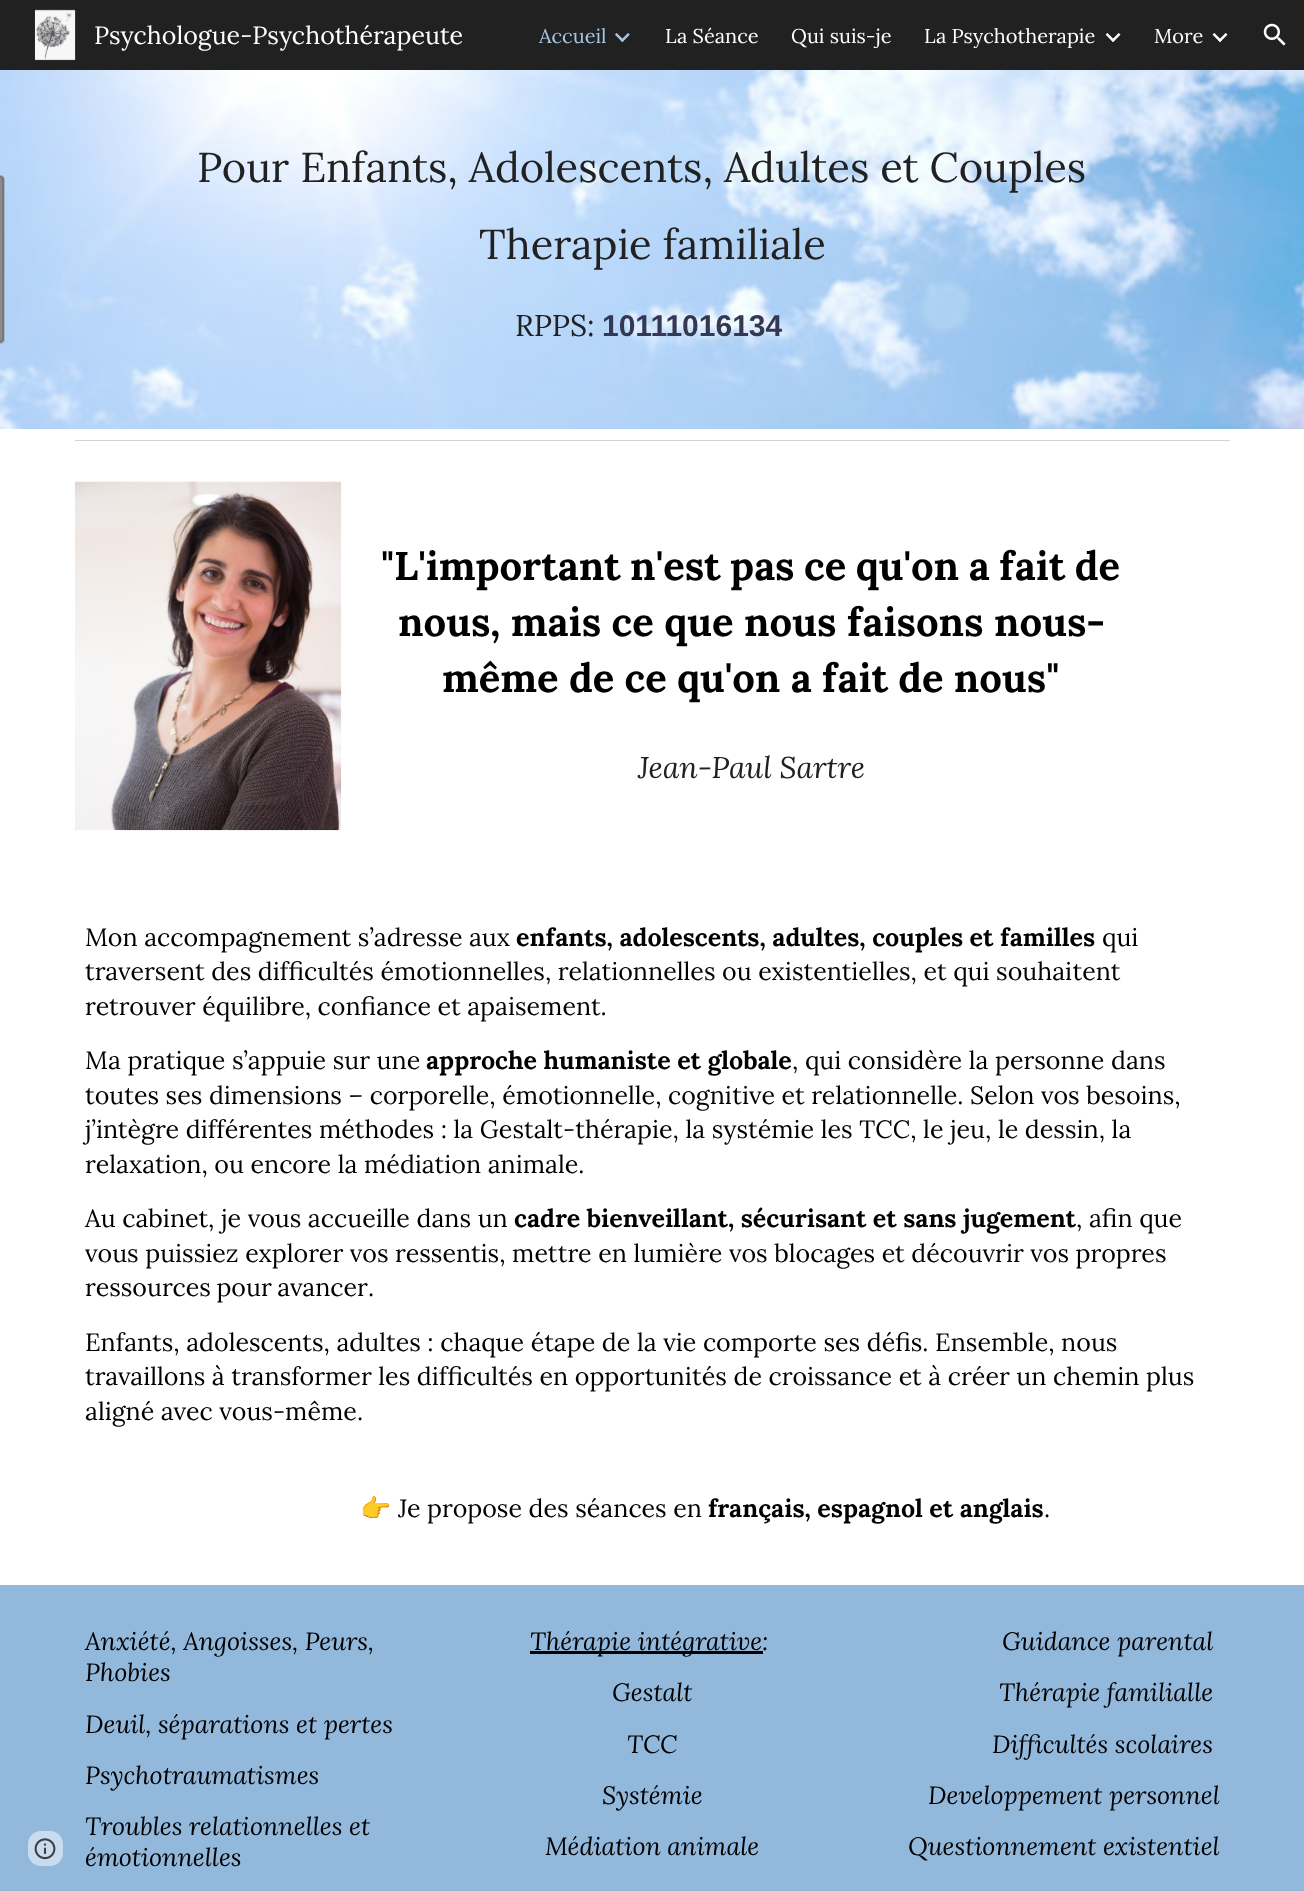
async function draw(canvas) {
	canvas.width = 1304;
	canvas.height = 1891;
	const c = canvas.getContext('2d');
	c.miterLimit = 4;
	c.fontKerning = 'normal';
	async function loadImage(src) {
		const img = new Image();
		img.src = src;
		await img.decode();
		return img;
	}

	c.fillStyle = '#fff';
	c.fillRect(0, 0, 1304, 1891);
	c.fillStyle = '#212121';
	c.fillRect(0, 0, 1304, 70);
	c.drawImage(await loadImage('img1.png'), 34, 9, 42, 52);
	c.font = '25px Lora';
	c.fillStyle = '#fff';
	c.fillText('Psychologue-Psychothérapeute', 94, 44);
	c.font = '20px Lora';
	c.fillStyle = '#a8c6e3';
	c.fillText('Accueil', 539, 43);
	c.drawImage(await loadImage('img2.png'), 615, 33, 15, 9);
	c.fillStyle = '#fff';
	c.fillText('La Séance', 665, 43);
	c.save();
	c.beginPath();
	c.rect(791, 23, 102, 25);
	c.clip();
	c.fillText('Qui suis-je', 791, 43);
	c.restore();
	c.save();
	c.beginPath();
	c.rect(925, 23, 171, 25);
	c.clip();
	c.fillText('La Psychotherapie', 924, 43);
	c.restore();
	c.drawImage(await loadImage('img3.png'), 1105, 33, 16, 9);
	c.fillText('More', 1154, 43);
	c.drawImage(await loadImage('img4.png'), 1212, 33, 16, 9);
	c.drawImage(await loadImage('img5.png'), 1263, 23, 23, 23);
	c.fillStyle = '#92b8dc';
	c.fillRect(0, 1585, 1304, 306);
	c.fillStyle = '#c9dcee';
	c.beginPath();
	c.roundRect(28, 1831, 35, 35, 13);
	c.fill();
	c.drawImage(await loadImage('img6.png'), 34, 1838, 22, 22);
	c.drawImage(await loadImage('img7.png'), 0, 70, 1304, 359);
	c.font = '41.7px Lora';
	c.fillStyle = '#212121';
	c.fillText('Pour Enfants, Adolescents, Adultes et Couples', 197, 182);
	c.fillText('Therapie familiale', 479, 259);
	c.font = '30px Lora';
	c.fillText('RPPS:', 515, 336);
	c.font = 'bold 30px Liberation Sans';
	c.fillStyle = '#343854';
	c.fillText('10111016134', 602, 336);
	c.fillStyle = '#d3d3d3';
	c.fillRect(75, 440, 1155, 1);
	c.drawImage(await loadImage('img8.png'), 75, 481, 267, 350);
	c.wordSpacing = '-1px';
	c.font = 'bold 40px Lora';
	c.fillStyle = '#000';
	c.fillText('"L\'important n\'est pas ce qu\'on a fait de', 381, 580);
	c.wordSpacing = '0px';
	c.fillText('nous, mais ce que nous faisons nous-', 398, 636);
	c.wordSpacing = '-0.25px';
	c.fillText('même de ce qu\'on a fait de nous"', 442, 692);
	c.wordSpacing = '0px';
	c.font = 'italic 30px Lora';
	c.fillStyle = '#212121';
	c.fillText('Jean-Paul Sartre', 638, 778);
	c.font = '25px Lora';
	c.fillStyle = '#000';
	c.fillText('Mon accompagnement s’adresse aux', 85, 946);
	c.font = 'bold 25px Lora';
	c.fillText('enfants, adolescents, adultes, couples et familles', 516, 946);
	c.font = '25px Lora';
	for (const [text, x, y] of [
		['qui', 1102, 946],
		['traversent des difficultés émotionnelles, relationnelles ou existentielles, et qui souhaitent', 85, 980],
		['retrouver équilibre, confiance et apaisement.', 85, 1015],
		['Ma pratique s’appuie sur une', 85, 1069],
	]) {
		c.fillText(text, x, y);
	}
	c.font = 'bold 25px Lora';
	c.fillText('approche humaniste et globale', 426, 1069);
	c.font = '25px Lora';
	for (const [text, x, y] of [
		[', qui considère la personne dans', 792, 1069],
		['toutes ses dimensions – corporelle, émotionnelle, cognitive et relationnelle. Selon vos besoins,', 85, 1104],
		['j’intègre différentes méthodes : la Gestalt-thérapie, la systémie les TCC, le jeu, le dessin, la', 85, 1138],
		['relaxation, ou encore la médiation animale.', 85, 1173],
		['Au cabinet, je vous accueille dans un', 85, 1227],
	]) {
		c.fillText(text, x, y);
	}
	c.font = 'bold 25px Lora';
	c.fillText('cadre bienveillant, sécurisant et sans jugement', 514, 1227);
	c.font = '25px Lora';
	c.fillText(', afin que', 1076, 1227);
	c.fillText('vous puissiez explorer vos ressentis, mettre en lumière vos blocages et découvrir vos propres', 85, 1262);
	c.wordSpacing = '-1px';
	c.fillText('ressources pour avancer.', 85, 1296);
	c.wordSpacing = '0px';
	for (const [text, x, y] of [
		['Enfants, adolescents, adultes : chaque étape de la vie comporte ses défis. Ensemble, nous', 85, 1351],
		['travaillons à transformer les difficultés en opportunités de croissance et à créer un chemin plus', 85, 1385],
		['aligné avec vous-même.', 85, 1420],
	]) {
		c.fillText(text, x, y);
	}
	c.font = '25px Noto Color Emoji';
	c.fillText('👉', 360, 1517);
	c.font = '25px Lora';
	c.fillText('Je propose des séances en', 398, 1517);
	c.font = 'bold 25px Lora';
	c.fillText('français, espagnol et anglais', 708, 1517);
	c.font = '25px Lora';
	c.fillText('.', 1044, 1517);
	c.font = 'italic 25px Lora';
	for (const [text, x, y] of [
		['Anxiété, Angoisses, Peurs,', 85, 1650],
		['Phobies', 85, 1681],
		['Deuil, séparations et pertes', 85, 1733],
		['Psychotraumatismes', 85, 1784],
		['Troubles relationnelles et', 85, 1835],
		['émotionnelles', 85, 1866],
	]) {
		c.fillText(text, x, y);
	}
	c.fillRect(530, 1651, 233, 3);
	for (const [text, x, y] of [
		['Thérapie intégrative:', 530, 1650],
		['Gestalt', 612, 1701],
		['TCC', 627, 1753],
		['Systémie', 602, 1804],
		['Médiation animale', 545, 1855],
		['Guidance parental', 1002, 1650],
		['Thérapie familialle', 999, 1701],
		['Difficultés scolaires', 992, 1753],
		['Developpement personnel', 928, 1804],
		['Questionnement existentiel', 908, 1855],
	]) {
		c.fillText(text, x, y);
	}
}

draw(document.querySelector('canvas'));
